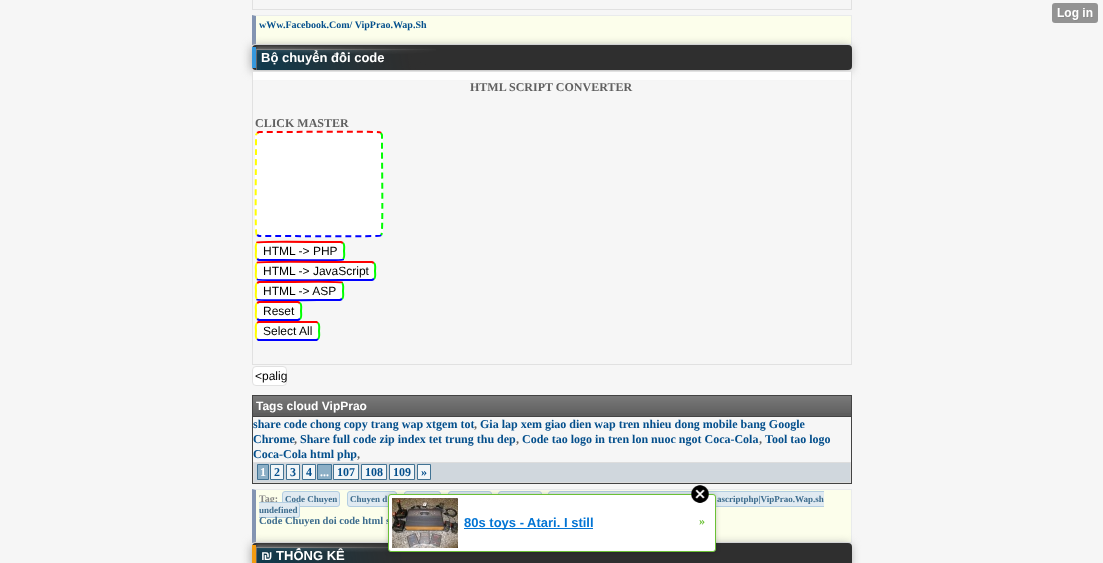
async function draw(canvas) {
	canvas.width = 1103;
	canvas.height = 563;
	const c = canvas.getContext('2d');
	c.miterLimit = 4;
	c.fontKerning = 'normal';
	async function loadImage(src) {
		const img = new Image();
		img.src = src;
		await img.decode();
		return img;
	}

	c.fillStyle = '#f6f6f6';
	c.fillRect(0, 0, 1103, 563);
	c.strokeStyle = '#e1e1e1';
	c.strokeRect(252.5, -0.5, 599, 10);
	c.drawImage(await loadImage('img1.png'), 1052, 3, 46, 20);
	c.fillStyle = '#fcfeeb';
	c.fillRect(256, 16, 595, 28);
	c.fillStyle = '#e9ebec';
	c.beginPath();
	c.moveTo(252, 15);
	c.lineTo(852, 15);
	c.lineTo(851, 16);
	c.lineTo(256, 16);
	c.closePath();
	c.fill();
	c.fillRect(851, 15, 1, 30);
	c.beginPath();
	c.moveTo(852, 45);
	c.lineTo(252, 45);
	c.lineTo(256, 44);
	c.lineTo(851, 44);
	c.closePath();
	c.fill();
	c.fillStyle = '#8394b2';
	c.beginPath();
	c.moveTo(252, 45);
	c.lineTo(252, 15);
	c.lineTo(256, 16);
	c.lineTo(256, 44);
	c.closePath();
	c.fill();
	c.fillStyle = '#aaa';
	c.filter = 'blur(5px)';
	c.beginPath();
	c.roundRect(251, 46, 600, 25, 4);
	c.fill();
	c.filter = 'none';
	c.font = 'bold 10px Liberation Serif';
	c.fillStyle = '#044f8c';
	c.fillText('wWw.Facebook.Com/ VipPrao.Wap.Sh', 259, 28);
	c.fillStyle = '#2f2f2f';
	c.beginPath();
	c.roundRect(252, 45, 600, 25, 4);
	c.fill();
	c.drawImage(await loadImage('img2.png'), 256, 45, 180, 25);
	c.fillStyle = '#3598dc';
	c.fillRect(252, 47, 4, 21);
	c.font = 'bold 13px Liberation Sans';
	c.fillStyle = '#fff';
	c.fillText('Bộ chuyển đổi code', 261, 62);
	c.fillStyle = '#fdfdfd';
	c.fillRect(252, 72, 600, 8);
	c.strokeRect(252.5, 71.5, 599, 293);
	c.font = 'bold 12px Liberation Serif';
	c.fillStyle = '#606060';
	c.fillText('HTML SCRIPT CONVERTER', 470, 91);
	c.fillText('CLICK MASTER', 255, 127);
	c.fillStyle = '#fff';
	c.beginPath();
	c.roundRect(255, 131, 128, 106, 4);
	c.fill();
	c.beginPath();
	c.moveTo(257, 133);
	c.lineTo(259, 132);
	c.lineTo(279, 132);
	c.bezierCurveTo(289.5, 132, 378.5, 131, 380.5, 132.5);
	c.lineTo(381, 133);
	c.strokeStyle = '#f00';
	c.lineWidth = 2;
	c.setLineDash([6, 4]);
	c.stroke();
	c.beginPath();
	c.moveTo(381, 133);
	c.lineTo(382, 135);
	c.lineTo(382, 151.5);
	c.bezierCurveTo(382, 160, 383, 232.5, 381.5, 234.5);
	c.lineTo(381, 235);
	c.strokeStyle = '#0f0';
	c.stroke();
	c.beginPath();
	c.moveTo(381, 235);
	c.lineTo(380.5, 235.5);
	c.bezierCurveTo(378.5, 237, 289.5, 236, 279, 236);
	c.lineTo(259, 236);
	c.lineTo(257, 235);
	c.strokeStyle = '#00f';
	c.stroke();
	c.beginPath();
	c.moveTo(257, 235);
	c.lineTo(256.5, 234.5);
	c.bezierCurveTo(255, 232.5, 256, 160, 256, 151.5);
	c.lineTo(256, 135);
	c.lineTo(257, 133);
	c.strokeStyle = '#ff0';
	c.stroke();
	c.beginPath();
	c.roundRect(255, 241, 90, 20, 4);
	c.fill();
	c.beginPath();
	c.moveTo(257, 243);
	c.lineTo(257, 242.5);
	c.bezierCurveTo(259, 241, 319.5, 242, 327.5, 242);
	c.lineTo(341, 242);
	c.lineTo(343, 243);
	c.strokeStyle = '#f00';
	c.setLineDash([]);
	c.stroke();
	c.beginPath();
	c.moveTo(343, 243);
	c.bezierCurveTo(345, 244.5, 344, 249, 344, 251);
	c.bezierCurveTo(344, 253, 345, 257.5, 343, 259);
	c.strokeStyle = '#0f0';
	c.stroke();
	c.beginPath();
	c.moveTo(343, 259);
	c.lineTo(343, 259.5);
	c.bezierCurveTo(341, 261, 280.5, 260, 272.5, 260);
	c.lineTo(259, 260);
	c.lineTo(257, 259);
	c.strokeStyle = '#00f';
	c.stroke();
	c.beginPath();
	c.moveTo(257, 259);
	c.bezierCurveTo(255, 257.5, 256, 253, 256, 251);
	c.bezierCurveTo(256, 249, 255, 244.5, 257, 243);
	c.strokeStyle = '#ff0';
	c.stroke();
	c.font = '12px Liberation Sans';
	c.fillStyle = '#000';
	c.fillText('HTML -> PHP', 263, 255);
	c.fillStyle = '#fff';
	c.beginPath();
	c.roundRect(255, 261, 121, 20, 4);
	c.fill();
	c.beginPath();
	c.moveTo(257, 263);
	c.lineTo(257.5, 262.5);
	c.bezierCurveTo(259.5, 261, 343.5, 262, 353, 262);
	c.lineTo(372, 262);
	c.lineTo(374, 263);
	c.strokeStyle = '#f00';
	c.stroke();
	c.beginPath();
	c.moveTo(374, 263);
	c.bezierCurveTo(376, 264.5, 375, 269, 375, 271);
	c.bezierCurveTo(375, 273, 376, 277.5, 374, 279);
	c.strokeStyle = '#0f0';
	c.stroke();
	c.beginPath();
	c.moveTo(374, 279);
	c.lineTo(372, 280);
	c.lineTo(353, 280);
	c.bezierCurveTo(343.5, 280, 259.5, 281, 257.5, 279.5);
	c.lineTo(257, 279);
	c.strokeStyle = '#00f';
	c.stroke();
	c.beginPath();
	c.moveTo(257, 279);
	c.bezierCurveTo(255, 277.5, 256, 273, 256, 271);
	c.bezierCurveTo(256, 269, 255, 264.5, 257, 263);
	c.strokeStyle = '#ff0';
	c.stroke();
	c.fillStyle = '#000';
	c.fillText('HTML -> JavaScript', 263, 275);
	c.fillStyle = '#fff';
	c.beginPath();
	c.roundRect(255, 281, 89, 20, 4);
	c.fill();
	c.beginPath();
	c.moveTo(257, 283);
	c.lineTo(259, 282);
	c.lineTo(272.5, 282);
	c.bezierCurveTo(280, 282, 340, 281, 342, 282.5);
	c.lineTo(342, 283);
	c.strokeStyle = '#f00';
	c.stroke();
	c.beginPath();
	c.moveTo(342, 283);
	c.bezierCurveTo(344, 284.5, 343, 289, 343, 291);
	c.bezierCurveTo(343, 293, 344, 297.5, 342, 299);
	c.strokeStyle = '#0f0';
	c.stroke();
	c.beginPath();
	c.moveTo(342, 299);
	c.lineTo(340, 300);
	c.lineTo(326.5, 300);
	c.bezierCurveTo(319, 300, 259, 301, 257, 299.5);
	c.lineTo(257, 299);
	c.strokeStyle = '#00f';
	c.stroke();
	c.beginPath();
	c.moveTo(257, 299);
	c.bezierCurveTo(255, 297.5, 256, 293, 256, 291);
	c.bezierCurveTo(256, 289, 255, 284.5, 257, 283);
	c.strokeStyle = '#ff0';
	c.stroke();
	c.fillStyle = '#000';
	c.fillText('HTML -> ASP', 263, 295);
	c.fillStyle = '#fff';
	c.beginPath();
	c.roundRect(255, 301, 47, 20, 4);
	c.fill();
	c.beginPath();
	c.moveTo(257, 303);
	c.lineTo(259, 302);
	c.lineTo(298, 302);
	c.lineTo(300, 303);
	c.strokeStyle = '#f00';
	c.stroke();
	c.beginPath();
	c.moveTo(300, 303);
	c.bezierCurveTo(302, 304.5, 301, 309, 301, 311);
	c.bezierCurveTo(301, 313, 302, 317.5, 300, 319);
	c.strokeStyle = '#0f0';
	c.stroke();
	c.beginPath();
	c.moveTo(300, 319);
	c.lineTo(298, 320);
	c.lineTo(259, 320);
	c.lineTo(257, 319);
	c.strokeStyle = '#00f';
	c.stroke();
	c.beginPath();
	c.moveTo(257, 319);
	c.bezierCurveTo(255, 317.5, 256, 313, 256, 311);
	c.bezierCurveTo(256, 309, 255, 304.5, 257, 303);
	c.strokeStyle = '#ff0';
	c.stroke();
	c.fillStyle = '#000';
	c.fillText('Reset', 263, 315);
	c.fillStyle = '#fff';
	c.beginPath();
	c.roundRect(255, 321, 65, 20, 4);
	c.fill();
	c.beginPath();
	c.moveTo(257, 323);
	c.lineTo(258.5, 322);
	c.lineTo(316.5, 322);
	c.lineTo(318, 323);
	c.strokeStyle = '#f00';
	c.stroke();
	c.beginPath();
	c.moveTo(318, 323);
	c.bezierCurveTo(320, 324.5, 319, 329, 319, 331);
	c.bezierCurveTo(319, 333, 320, 337.5, 318, 339);
	c.strokeStyle = '#0f0';
	c.stroke();
	c.beginPath();
	c.moveTo(318, 339);
	c.lineTo(316.5, 340);
	c.lineTo(258.5, 340);
	c.lineTo(257, 339);
	c.strokeStyle = '#00f';
	c.stroke();
	c.beginPath();
	c.moveTo(257, 339);
	c.bezierCurveTo(255, 337.5, 256, 333, 256, 331);
	c.bezierCurveTo(256, 329, 255, 324.5, 257, 323);
	c.strokeStyle = '#ff0';
	c.stroke();
	c.fillStyle = '#000';
	c.fillText('Select All', 263, 335);
	c.fillStyle = '#fff';
	c.beginPath();
	c.roundRect(252.5, 366.5, 34, 19, 3.5);
	c.fill();
	c.strokeStyle = '#e1e1e1';
	c.lineWidth = 1;
	c.stroke();
	c.fillStyle = '#000';
	c.fillText('<palig', 255, 380);
	c.strokeStyle = '#434343';
	c.strokeRect(252.5, 395.5, 599, 88);
	c.fillStyle = '#5d5d5d';
	c.fillRect(253, 413, 598, 3);
	c.drawImage(await loadImage('img3.png'), 253, 396, 598, 17);
	c.strokeRect(252.5, 395.5, 599, 21);
	c.font = 'bold 12px Liberation Sans';
	c.fillStyle = '#fff';
	c.fillText('Tags cloud VipPrao', 256, 410);
	c.font = 'bold 12px Liberation Serif';
	c.fillStyle = '#044f8c';
	c.fillText('share code chong copy trang wap xtgem tot', 253, 428);
	c.fillStyle = '#606060';
	c.fillText(',', 474, 428);
	c.fillStyle = '#044f8c';
	c.fillText('Gia lap xem giao dien wap tren nhieu dong mobile bang Google', 480, 428);
	c.fillText('Chrome', 253, 443);
	c.fillStyle = '#606060';
	c.fillText(',', 294, 443);
	c.fillStyle = '#044f8c';
	c.fillText('Share full code zip index tet trung thu dep', 300, 443);
	c.fillStyle = '#606060';
	c.fillText(',', 516, 443);
	c.fillStyle = '#044f8c';
	c.fillText('Code tao logo in tren lon nuoc ngot Coca-Cola', 522, 443);
	c.fillStyle = '#606060';
	c.fillText(',', 759, 443);
	c.fillStyle = '#044f8c';
	c.fillText('Tool tao logo', 765, 443);
	c.fillText('Coca-Cola html php', 253, 458);
	c.fillStyle = '#606060';
	c.fillText(',', 357, 458);
	c.fillStyle = '#d0d7dd';
	c.beginPath();
	c.rect(253.5, 462.5, 597, 20);
	c.fill();
	c.strokeStyle = '#ddd';
	c.stroke();
	c.fillStyle = '#8cafc6';
	c.beginPath();
	c.rect(257.5, 464.5, 11, 15);
	c.fill();
	c.strokeStyle = '#417394';
	c.stroke();
	c.fillStyle = '#fff';
	c.fillText('1', 260, 476);
	c.fillStyle = '#f2f6f8';
	c.beginPath();
	c.rect(270.5, 464.5, 13, 15);
	c.fill();
	c.stroke();
	c.fillStyle = '#044f8c';
	c.fillText('2', 274, 476);
	c.fillStyle = '#f2f6f8';
	c.beginPath();
	c.rect(286.5, 464.5, 13, 15);
	c.fill();
	c.stroke();
	c.fillStyle = '#044f8c';
	c.fillText('3', 290, 476);
	c.fillStyle = '#f2f6f8';
	c.beginPath();
	c.rect(302.5, 464.5, 13, 15);
	c.fill();
	c.stroke();
	c.fillStyle = '#044f8c';
	c.fillText('4', 306, 476);
	c.fillStyle = '#8cafc6';
	c.beginPath();
	c.rect(317.5, 464.5, 14, 15);
	c.fill();
	c.stroke();
	c.fillStyle = '#fff';
	c.fillText('...', 320, 476);
	c.fillStyle = '#f2f6f8';
	c.beginPath();
	c.rect(333.5, 464.5, 25, 15);
	c.fill();
	c.stroke();
	c.fillStyle = '#044f8c';
	c.fillText('107', 337, 476);
	c.fillStyle = '#f2f6f8';
	c.beginPath();
	c.rect(361.5, 464.5, 25, 15);
	c.fill();
	c.stroke();
	c.fillStyle = '#044f8c';
	c.fillText('108', 365, 476);
	c.fillStyle = '#f2f6f8';
	c.beginPath();
	c.rect(389.5, 464.5, 25, 15);
	c.fill();
	c.stroke();
	c.fillStyle = '#044f8c';
	c.fillText('109', 393, 476);
	c.fillStyle = '#f2f6f8';
	c.beginPath();
	c.rect(417.5, 464.5, 13, 15);
	c.fill();
	c.stroke();
	c.fillStyle = '#044f8c';
	c.fillText('»', 421, 476);
	c.fillStyle = '#fcfeeb';
	c.fillRect(256, 490, 595, 52);
	c.fillStyle = '#e9ebec';
	c.beginPath();
	c.moveTo(252, 489);
	c.lineTo(852, 489);
	c.lineTo(851, 490);
	c.lineTo(256, 490);
	c.closePath();
	c.fill();
	c.fillRect(851, 489, 1, 54);
	c.beginPath();
	c.moveTo(852, 543);
	c.lineTo(252, 543);
	c.lineTo(256, 542);
	c.lineTo(851, 542);
	c.closePath();
	c.fill();
	c.fillStyle = '#8394b2';
	c.beginPath();
	c.moveTo(252, 543);
	c.lineTo(252, 489);
	c.lineTo(256, 490);
	c.lineTo(256, 542);
	c.closePath();
	c.fill();
	c.font = 'bold 10px Liberation Serif';
	c.fillStyle = '#878787';
	c.fillText('Tag:', 259, 502);
	c.fillStyle = '#e0eaf1';
	c.beginPath();
	c.roundRect(282.5, 491.5, 57, 15, 2.5);
	c.fill();
	c.strokeStyle = '#b3cee1';
	c.stroke();
	c.font = 'bold 9px Liberation Serif';
	c.fillStyle = '#3e6d8e';
	c.fillText('Code Chuyen', 285, 502);
	c.fillStyle = '#e0eaf1';
	c.beginPath();
	c.roundRect(347.5, 491.5, 49, 15, 2.5);
	c.fill();
	c.stroke();
	c.fillStyle = '#3e6d8e';
	c.fillText('Chuyen d', 350, 502);
	c.fillStyle = '#e0eaf1';
	c.beginPath();
	c.roundRect(404.5, 491.5, 36, 15, 2.5);
	c.fill();
	c.stroke();
	c.beginPath();
	c.roundRect(448.5, 491.5, 43, 15, 2.5);
	c.fill();
	c.stroke();
	c.beginPath();
	c.roundRect(498.5, 491.5, 43, 15, 2.5);
	c.fill();
	c.stroke();
	c.beginPath();
	c.roundRect(548.5, 491.5, 147, 15, 2.5);
	c.fill();
	c.stroke();
	c.fillRect(707, 492, 117, 14);
	c.fillStyle = '#b3cee1';
	c.beginPath();
	c.moveTo(705, 491);
	c.lineTo(824, 491);
	c.lineTo(824, 507);
	c.lineTo(705, 507);
	c.bezierCurveTo(703, 507, 702, 506, 702, 504);
	c.lineTo(702, 494);
	c.bezierCurveTo(702, 492, 703, 491, 705, 491);
	c.closePath();
	c.moveTo(705, 492);
	c.lineTo(824, 492);
	c.lineTo(824, 506);
	c.lineTo(705, 506);
	c.bezierCurveTo(702, 506, 703, 501, 703, 499);
	c.bezierCurveTo(703, 497, 702, 492, 705, 492);
	c.closePath();
	c.fill('evenodd');
	c.fillStyle = '#3e6d8e';
	c.fillText('ascriptphp|VipPrao.Wap.sh', 717, 502);
	c.fillStyle = '#e0eaf1';
	c.beginPath();
	c.roundRect(259, 502, 41, 16, [0, 3, 3, 0]);
	c.fill();
	c.fillStyle = '#b3cee1';
	c.beginPath();
	c.moveTo(259, 502);
	c.lineTo(297, 502);
	c.bezierCurveTo(299, 502, 300, 503, 300, 505);
	c.lineTo(300, 515);
	c.bezierCurveTo(300, 517, 299, 518, 297, 518);
	c.lineTo(259, 518);
	c.closePath();
	c.moveTo(259, 503);
	c.lineTo(297, 503);
	c.bezierCurveTo(298, 503, 299, 504, 299, 505);
	c.lineTo(299, 515);
	c.bezierCurveTo(299, 516, 298, 517, 297, 517);
	c.lineTo(259, 517);
	c.closePath();
	c.fill('evenodd');
	c.fillStyle = '#3e6d8e';
	c.fillText('undefined', 259, 513);
	c.font = 'bold 10.5px Liberation Serif';
	c.fillText('Code Chuyen doi code html s', 259, 524);
	c.fillStyle = '#aaa';
	c.filter = 'blur(5px)';
	c.beginPath();
	c.roundRect(251, 544, 600, 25, 4);
	c.fill();
	c.filter = 'none';
	c.fillStyle = '#2f2f2f';
	c.beginPath();
	c.roundRect(252, 543, 600, 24, 4);
	c.fill();
	c.drawImage(await loadImage('img6.png'), 256, 543, 146, 20);
	c.fillStyle = '#00000033';
	c.filter = 'blur(2.5px)';
	c.beginPath();
	c.roundRect(388, 494, 328, 58, 3);
	c.fill();
	c.filter = 'none';
	c.fillStyle = '#fff';
	c.beginPath();
	c.roundRect(388.5, 494.5, 327, 57, 2.5);
	c.fill();
	c.strokeStyle = '#6bc135';
	c.stroke();
	c.drawImage(await loadImage('img4.png'), 691, 485, 18, 18);
	c.drawImage(await loadImage('img5.png'), 392, 498, 66, 50);
	c.fillStyle = '#0274d4';
	c.fillRect(464, 528, 129, 1);
	c.font = 'bold 13px Liberation Sans';
	c.fillText('80s toys - Atari. I still', 464, 527);
	c.font = 'bold 12px Liberation Serif';
	c.fillStyle = '#6bc135';
	c.fillText('»', 699, 525);
	c.fillStyle = '#f39c11';
	c.fillRect(252, 545, 4, 18);
	c.font = 'bold 13px Liberation Sans';
	c.fillStyle = '#fff';
	c.fillText('₪ THỐNG KÊ', 261, 560);
}

draw(document.querySelector('canvas'));
